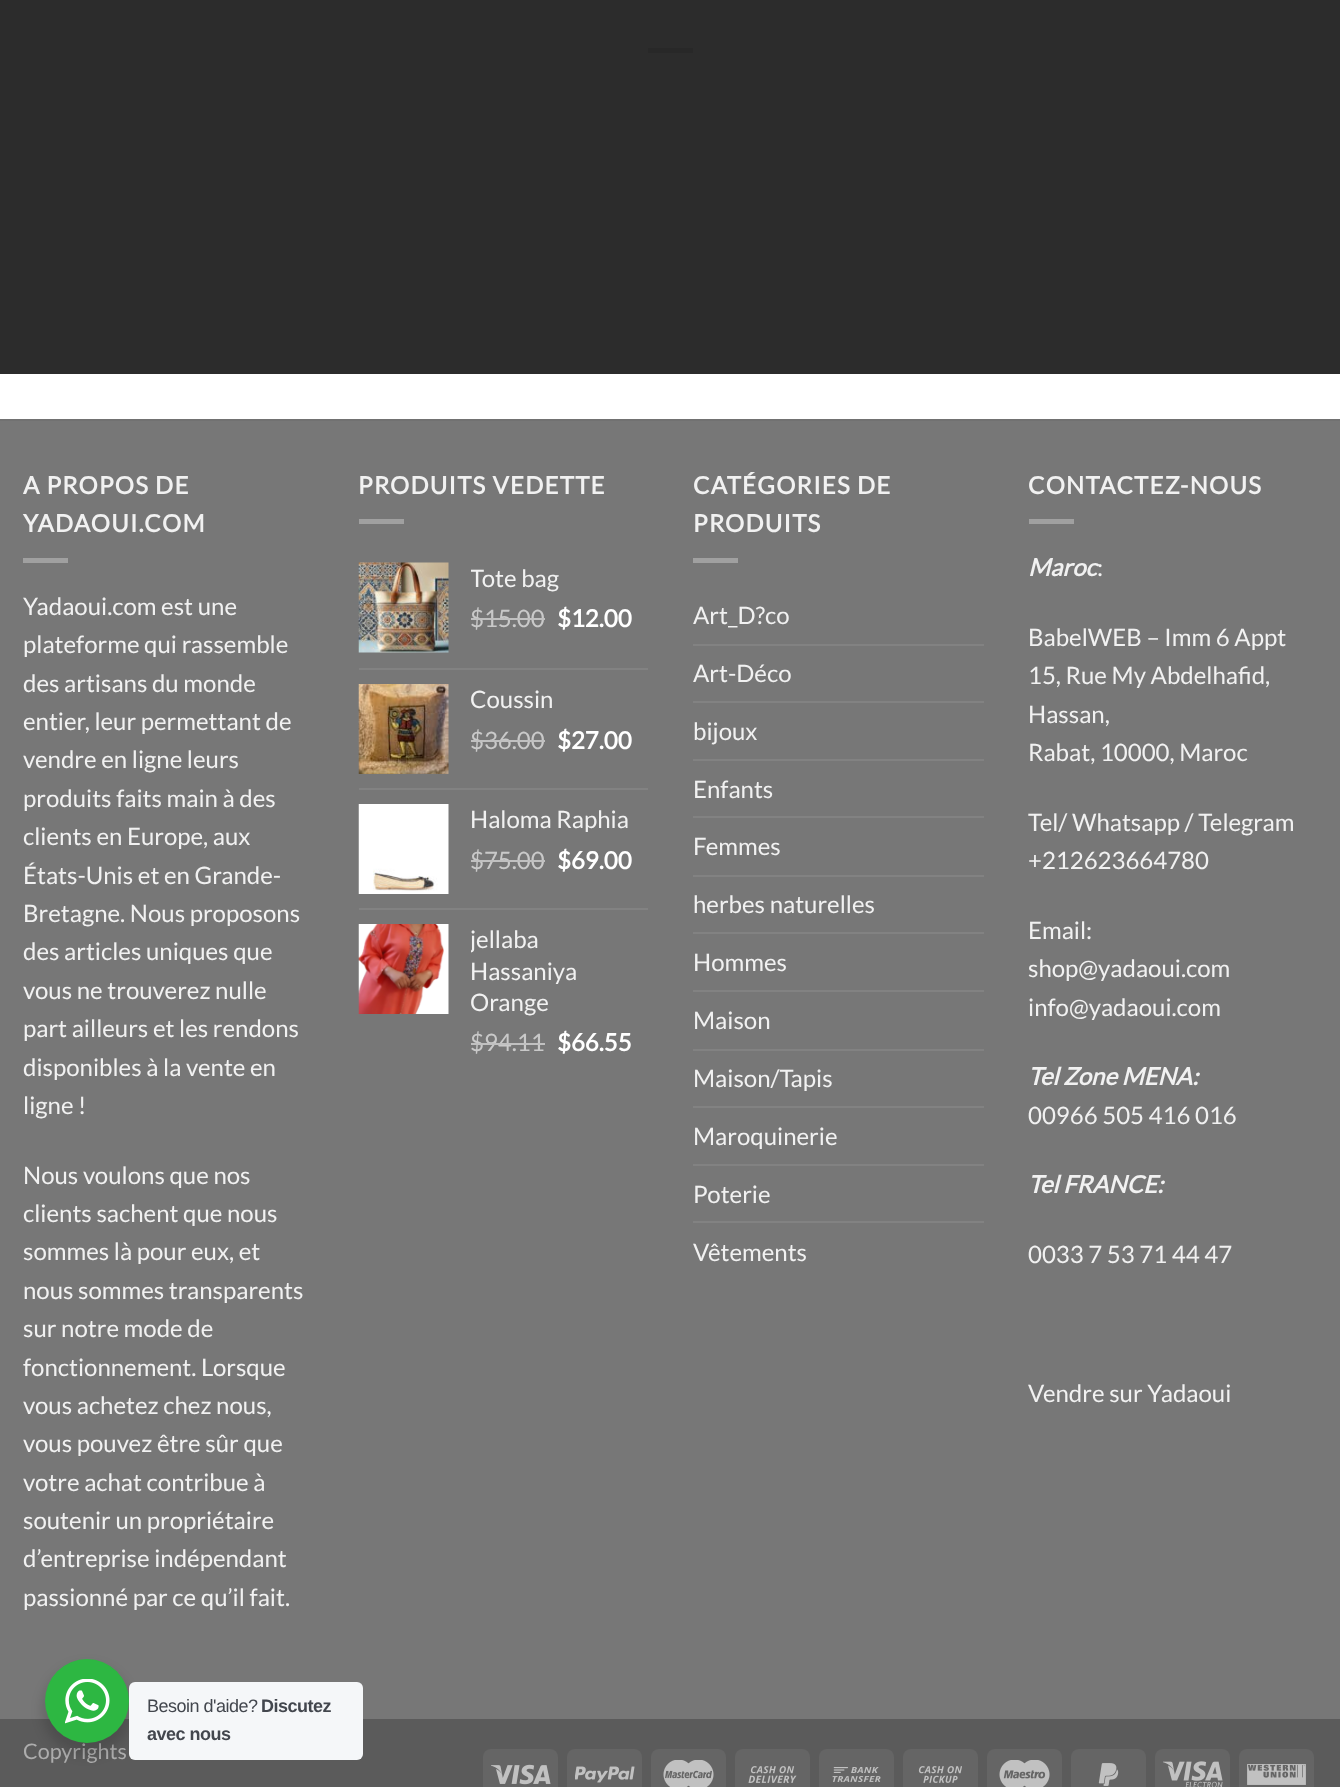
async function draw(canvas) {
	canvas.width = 1340;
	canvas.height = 1787;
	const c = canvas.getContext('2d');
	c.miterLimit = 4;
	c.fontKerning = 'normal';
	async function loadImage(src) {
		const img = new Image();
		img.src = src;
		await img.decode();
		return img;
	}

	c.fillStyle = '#fff';
	c.fillRect(0, 0, 1340, 1787);
	for (const [x, y, w, h, color] of [
		[0, 0, 1340, 374, '#2c2c2c'],
		[648, 48, 45, 5, '#282828'],
		[0, 421, 1340, 1298, '#777'],
		[0, 419, 1340, 2, '#717171'],
	]) {
		c.fillStyle = color;
		c.fillRect(x, y, w, h);
	}
	c.letterSpacing = '1.25px';
	c.font = 'bold 24px Lato';
	c.fillStyle = '#f1f1f1';
	c.fillText('A PROPOS DE', 23, 494);
	c.fillText('YADAOUI.COM', 23, 532);
	c.fillStyle = '#a0a0a0';
	c.fillRect(23, 558, 45, 5);
	c.letterSpacing = '0px';
	c.font = '24px Lato';
	c.fillStyle = '#f1f1f1';
	for (const [text, x, y] of [
		['Yadaoui.com est une', 23, 615],
		['plateforme qui rassemble', 23, 653],
		['des artisans du monde', 23, 692],
		['entier, leur permettant de', 23, 730],
		['vendre en ligne leurs', 23, 768],
		['produits faits main à des', 23, 807],
		['clients en Europe, aux', 23, 845],
		['États-Unis et en Grande-', 23, 884],
		['Bretagne. Nous proposons', 23, 922],
		['des articles uniques que', 23, 960],
		['vous ne trouverez nulle', 23, 999],
		['part ailleurs et les rendons', 23, 1037],
		['disponibles à la vente en', 23, 1076],
		['ligne !', 23, 1114],
		['Nous voulons que nos', 23, 1184],
		['clients sachent que nous', 23, 1222],
		['sommes là pour eux, et', 23, 1260],
		['nous sommes transparents', 23, 1299],
		['sur notre mode de', 23, 1337],
		['fonctionnement. Lorsque', 23, 1376],
		['vous achetez chez nous,', 23, 1414],
		['vous pouvez être sûr que', 23, 1452],
		['votre achat contribue à', 23, 1491],
		['soutenir un propriétaire', 23, 1529],
		['d’entreprise indépendant', 23, 1567],
		['passionné par ce qu’il fait.', 23, 1606],
	]) {
		c.fillText(text, x, y);
	}
	c.letterSpacing = '1.25px';
	c.font = 'bold 24px Lato';
	c.fillText('PRODUITS VEDETTE', 358, 494);
	c.fillStyle = '#a0a0a0';
	c.fillRect(359, 519, 45, 5);
	c.drawImage(await loadImage('img1.png'), 358, 562, 91, 91);
	c.save();
	c.beginPath();
	c.rect(471, 563, 177, 31);
	c.clip();
	c.letterSpacing = '0px';
	c.font = '24px Lato';
	c.fillStyle = '#f1f1f1';
	c.fillText('Tote bag', 470, 587);
	c.restore();
	c.letterSpacing = '0px';
	c.font = '24px Lato';
	c.fillStyle = '#c9c9c9';
	c.fillText('$15.00', 470, 627);
	c.fillStyle = '#c0c0c0';
	c.fillRect(471, 618, 74, 2);
	c.font = 'bold 24px Lato';
	c.fillStyle = '#fff';
	c.fillText('$12.00', 557, 627);
	c.fillStyle = '#828282';
	c.fillRect(359, 668, 289, 2);
	c.drawImage(await loadImage('img2.png'), 358, 684, 91, 90);
	c.font = '24px Lato';
	c.fillStyle = '#f1f1f1';
	c.fillText('Coussin', 470, 708);
	c.fillStyle = '#c9c9c9';
	c.fillText('$36.00', 470, 749);
	c.fillStyle = '#c0c0c0';
	c.fillRect(471, 740, 74, 2);
	c.font = 'bold 24px Lato';
	c.fillStyle = '#fff';
	c.fillText('$27.00', 557, 749);
	c.fillStyle = '#828282';
	c.fillRect(359, 788, 289, 2);
	c.drawImage(await loadImage('img3.png'), 358, 804, 91, 90);
	c.font = '24px Lato';
	c.fillStyle = '#f1f1f1';
	c.fillText('Haloma Raphia', 470, 828);
	c.fillStyle = '#c9c9c9';
	c.fillText('$75.00', 470, 869);
	c.fillStyle = '#c0c0c0';
	c.fillRect(471, 860, 74, 2);
	c.font = 'bold 24px Lato';
	c.fillStyle = '#fff';
	c.fillText('$69.00', 557, 869);
	c.fillStyle = '#828282';
	c.fillRect(359, 908, 289, 2);
	c.drawImage(await loadImage('img4.png'), 358, 924, 91, 90);
	c.save();
	c.beginPath();
	c.rect(471, 924, 177, 95);
	c.clip();
	c.font = '24px Lato';
	c.fillStyle = '#f1f1f1';
	c.fillText('jellaba', 470, 948);
	c.restore();
	c.font = '24px Lato';
	c.fillStyle = '#f1f1f1';
	c.fillText('Hassaniya', 470, 980);
	c.fillText('Orange', 470, 1011);
	c.fillStyle = '#c9c9c9';
	c.fillText('$94.11', 470, 1051);
	c.fillStyle = '#c0c0c0';
	c.fillRect(471, 1043, 74, 2);
	c.font = 'bold 24px Lato';
	c.fillStyle = '#fff';
	c.fillText('$66.55', 557, 1051);
	c.letterSpacing = '1.25px';
	c.fillStyle = '#f1f1f1';
	c.fillText('CATÉGORIES DE', 693, 494);
	c.fillText('PRODUITS', 693, 532);
	c.fillStyle = '#a0a0a0';
	c.fillRect(693, 558, 45, 5);
	c.letterSpacing = '0px';
	c.font = '24px Lato';
	c.fillStyle = '#f1f1f1';
	c.fillText('Art_D?co', 693, 624);
	c.fillStyle = '#828282';
	c.fillRect(693, 644, 291, 2);
	c.fillStyle = '#f1f1f1';
	c.fillText('Art-Déco', 693, 682);
	c.fillStyle = '#828282';
	c.fillRect(693, 701, 291, 2);
	c.fillStyle = '#f1f1f1';
	c.fillText('bijoux', 693, 740);
	c.fillStyle = '#828282';
	c.fillRect(693, 759, 291, 2);
	c.fillStyle = '#f1f1f1';
	c.fillText('Enfants', 693, 798);
	c.fillStyle = '#828282';
	c.fillRect(693, 816, 291, 2);
	c.fillStyle = '#f1f1f1';
	c.fillText('Femmes', 693, 855);
	c.fillStyle = '#828282';
	c.fillRect(693, 875, 291, 2);
	c.fillStyle = '#f1f1f1';
	c.fillText('herbes naturelles', 693, 913);
	c.fillStyle = '#828282';
	c.fillRect(693, 932, 291, 2);
	c.fillStyle = '#f1f1f1';
	c.fillText('Hommes', 693, 971);
	c.fillStyle = '#828282';
	c.fillRect(693, 990, 291, 2);
	c.fillStyle = '#f1f1f1';
	c.fillText('Maison', 693, 1029);
	c.fillStyle = '#828282';
	c.fillRect(693, 1049, 291, 2);
	c.fillStyle = '#f1f1f1';
	c.fillText('Maison/Tapis', 693, 1087);
	c.fillStyle = '#828282';
	c.fillRect(693, 1106, 291, 2);
	c.fillStyle = '#f1f1f1';
	c.fillText('Maroquinerie', 693, 1145);
	c.fillStyle = '#828282';
	c.fillRect(693, 1164, 291, 2);
	c.fillStyle = '#f1f1f1';
	c.fillText('Poterie', 693, 1203);
	c.fillStyle = '#828282';
	c.fillRect(693, 1221, 291, 2);
	c.fillStyle = '#f1f1f1';
	c.fillText('Vêtements', 693, 1261);
	c.letterSpacing = '1.25px';
	c.font = 'bold 24px Lato';
	c.fillText('CONTACTEZ-NOUS', 1028, 494);
	c.fillStyle = '#a0a0a0';
	c.fillRect(1029, 519, 45, 5);
	c.letterSpacing = '0px';
	c.font = 'italic bold 24px Lato';
	c.fillStyle = '#f1f1f1';
	c.fillText('Maroc', 1028, 576);
	c.font = '24px Lato';
	for (const [text, x, y] of [
		[':', 1097, 576],
		['BabelWEB – Imm 6 Appt', 1028, 646],
		['15, Rue My Abdelhafid,', 1028, 684],
		['Hassan,', 1028, 723],
		['Rabat, 10000, Maroc', 1028, 761],
		['Tel/ Whatsapp / Telegram', 1028, 831],
		['+212623664780', 1028, 869],
		['Email:', 1028, 939],
		['shop@yadaoui.com', 1028, 977],
		['info@yadaoui.com', 1028, 1016],
	]) {
		c.fillText(text, x, y);
	}
	c.font = 'italic bold 24px Lato';
	c.fillText('Tel Zone MENA:', 1028, 1085);
	c.font = '24px Lato';
	c.fillText('00966 505 416 016', 1028, 1124);
	c.font = 'italic bold 24px Lato';
	c.fillText('Tel FRANCE:', 1028, 1193);
	c.font = '24px Lato';
	c.fillText('0033 7 53 71 44 47', 1028, 1263);
	c.fillText('Vendre sur Yadaoui', 1028, 1402);
	c.fillStyle = '#5b5b5b';
	c.fillRect(0, 1719, 1340, 68);
	c.font = '21.5px Lato';
	c.fillStyle = '#adadad';
	c.fillText('Copyrights', 23, 1759);
	c.fillStyle = '#656565';
	c.beginPath();
	c.roundRect(483, 1749, 75, 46, 8);
	c.fill();
	c.drawImage(await loadImage('img5.png'), 491, 1764, 60, 21);
	c.beginPath();
	c.roundRect(567, 1749, 75, 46, 8);
	c.fill();
	c.drawImage(await loadImage('img6.png'), 575, 1766, 60, 17);
	c.beginPath();
	c.roundRect(651, 1749, 75, 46, 8);
	c.fill();
	c.drawImage(await loadImage('img7.png'), 663, 1760, 51, 27);
	c.beginPath();
	c.roundRect(735, 1749, 75, 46, 8);
	c.fill();
	c.drawImage(await loadImage('img8.png'), 748, 1766, 49, 17);
	c.beginPath();
	c.roundRect(819, 1749, 75, 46, 8);
	c.fill();
	c.drawImage(await loadImage('img9.png'), 832, 1767, 49, 15);
	c.beginPath();
	c.roundRect(903, 1749, 75, 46, 8);
	c.fill();
	c.drawImage(await loadImage('img10.png'), 918, 1766, 44, 17);
	c.beginPath();
	c.roundRect(987, 1749, 75, 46, 8);
	c.fill();
	c.drawImage(await loadImage('img11.png'), 999, 1760, 51, 27);
	c.beginPath();
	c.roundRect(1071, 1749, 75, 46, 8);
	c.fill();
	c.drawImage(await loadImage('img12.png'), 1098, 1763, 21, 23);
	c.beginPath();
	c.roundRect(1155, 1749, 75, 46, 8);
	c.fill();
	c.drawImage(await loadImage('img13.png'), 1163, 1761, 60, 26);
	c.beginPath();
	c.roundRect(1239, 1749, 75, 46, 8);
	c.fill();
	c.drawImage(await loadImage('img14.png'), 1247, 1764, 59, 21);
	c.fillStyle = '#00000024';
	c.filter = 'blur(6px)';
	c.beginPath();
	c.roundRect(42, 1665, 90, 90, 45);
	c.fill();
	c.filter = 'none';
	c.fillStyle = '#2db742';
	c.beginPath();
	c.arc(87, 1701, 42, 0, 2 * Math.PI);
	c.fill();
	c.drawImage(await loadImage('img15.png'), 65, 1679, 45, 45);
	c.fillStyle = '#f5f7f9';
	c.beginPath();
	c.roundRect(129, 1682, 234, 78, 6);
	c.fill();
	c.letterSpacing = '-0.5px';
	c.font = '18px Liberation Sans';
	c.fillStyle = '#43474e';
	c.fillText('Besoin d\'aide?', 147, 1712);
	c.font = 'bold 18px Liberation Sans';
	c.fillText('Discutez', 261, 1712);
	c.fillText('avec nous', 147, 1740);
}

draw(document.querySelector('canvas'));
